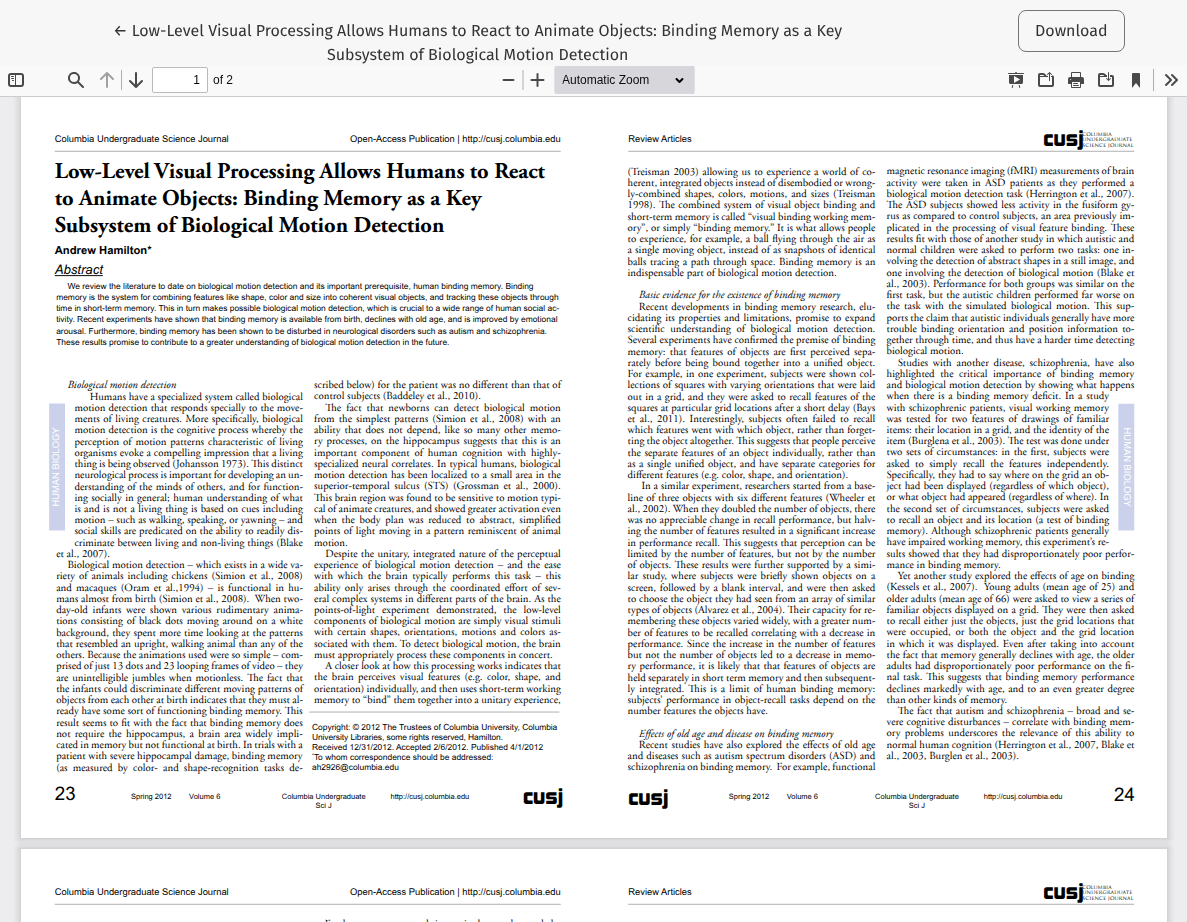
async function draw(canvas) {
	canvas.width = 1187;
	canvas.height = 922;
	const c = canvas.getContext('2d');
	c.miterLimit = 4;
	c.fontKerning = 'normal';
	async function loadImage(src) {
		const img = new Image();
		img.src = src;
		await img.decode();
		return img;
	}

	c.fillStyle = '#f7f7f7';
	c.fillRect(0, 0, 1187, 922);
	c.font = '16px Fira Sans';
	c.fillStyle = '#333';
	c.fillText('← Low-Level Visual Processing Allows Humans to React to Animate Objects: Binding Memory as a Key', 113, 36);
	c.fillText('Subsystem of Biological Motion Detection', 327, 60);
	c.beginPath();
	c.roundRect(1018.5, 10.5, 106, 41, 7.5);
	c.strokeStyle = '#757575';
	c.stroke();
	c.fillText('Download', 1035, 36);
	c.drawImage(await loadImage('img1.png'), 0, 66, 1187, 856);
}

draw(document.querySelector('canvas'));
